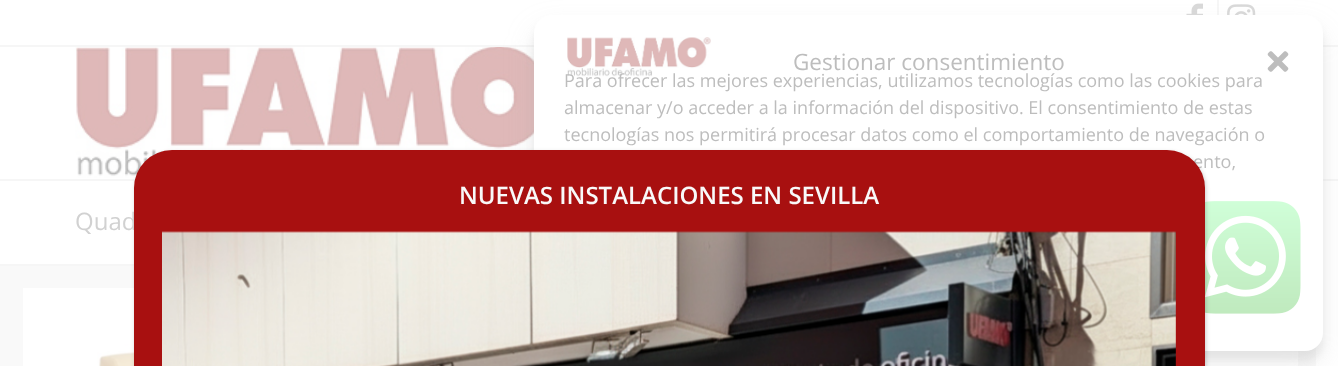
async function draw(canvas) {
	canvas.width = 1338;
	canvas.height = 366;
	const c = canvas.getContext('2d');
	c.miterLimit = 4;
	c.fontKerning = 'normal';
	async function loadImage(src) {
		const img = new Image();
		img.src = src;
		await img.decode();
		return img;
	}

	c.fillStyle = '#fff';
	c.fillRect(0, 0, 1338, 366);
	c.fillStyle = '#f6f6f6';
	c.fillRect(0, 45, 1338, 2);
	c.fillRect(1217, 0, 2, 15);
	c.drawImage(await loadImage('img4.png'), 1186, 3, 17, 12);
	c.drawImage(await loadImage('img5.png'), 1227, 4, 29, 11);
	c.fillRect(0, 179, 1338, 2);
	c.drawImage(await loadImage('img6.png'), 75, 47, 459, 131);
	c.fillStyle = '#f9f9f9';
	c.fillRect(0, 266, 1316, 100);
	c.fillStyle = '#fff';
	c.fillRect(1205, 351, 93, 15);
	c.fillStyle = '#b3b3b33b';
	c.filter = 'blur(4.5px)';
	c.beginPath();
	c.roundRect(534, 24, 789, 336, 18);
	c.fill();
	c.filter = 'none';
	c.fillStyle = '#b3b3b330';
	c.filter = 'blur(15px)';
	c.beginPath();
	c.roundRect(534, 30, 789, 336, 18);
	c.fill();
	c.filter = 'none';
	c.fillStyle = '#fff';
	c.beginPath();
	c.roundRect(534, 15, 789, 336, 18);
	c.fill();
	c.drawImage(await loadImage('img1.png'), 567, 37, 144, 40);
	c.font = '22.5px Open Sans';
	c.fillStyle = '#bdbdbd';
	c.fillText('Gestionar consentimiento', 793, 70);
	c.drawImage(await loadImage('img2.png'), 1267, 51, 22, 21);
	c.font = '18px Open Sans';
	for (const [text, x, y] of [
		['Para ofrecer las mejores experiencias, utilizamos tecnologías como las cookies para', 564, 87],
		['almacenar y/o acceder a la información del dispositivo. El consentimiento de estas', 564, 114],
		['tecnologías nos permitirá procesar datos como el comportamiento de navegación o', 564, 141],
		['ento,', 1193, 168],
	]) {
		c.fillText(text, x, y);
	}
	c.fillStyle = '#f6f6f6';
	c.fillRect(0, 264, 134, 2);
	c.fillStyle = '#fff';
	c.fillRect(23, 288, 111, 78);
	c.drawImage(await loadImage('img7.png'), 97, 344, 37, 22);
	c.drawImage(await loadImage('img8.png'), 1205, 201, 96, 113);
	c.fillStyle = '#02020233';
	c.filter = 'blur(2px)';
	c.beginPath();
	c.roundRect(135, 152, 1071, 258, 38);
	c.fill();
	c.filter = 'none';
	c.font = '24px Open Sans';
	c.fillStyle = '#d1d1d1';
	c.fillText('Quad', 75, 230);
	c.fillStyle = '#a81010';
	c.beginPath();
	c.roundRect(134, 150, 1071, 216, [38, 38, 0, 0]);
	c.fill();
	c.font = '600 24px Open Sans';
	c.fillStyle = '#f9f9f9';
	c.fillText('NUEVAS INSTALACIONES EN SEVILLA', 459, 204);
	c.drawImage(await loadImage('img3.png'), 162, 231, 1014, 135);
}

draw(document.querySelector('canvas'));
